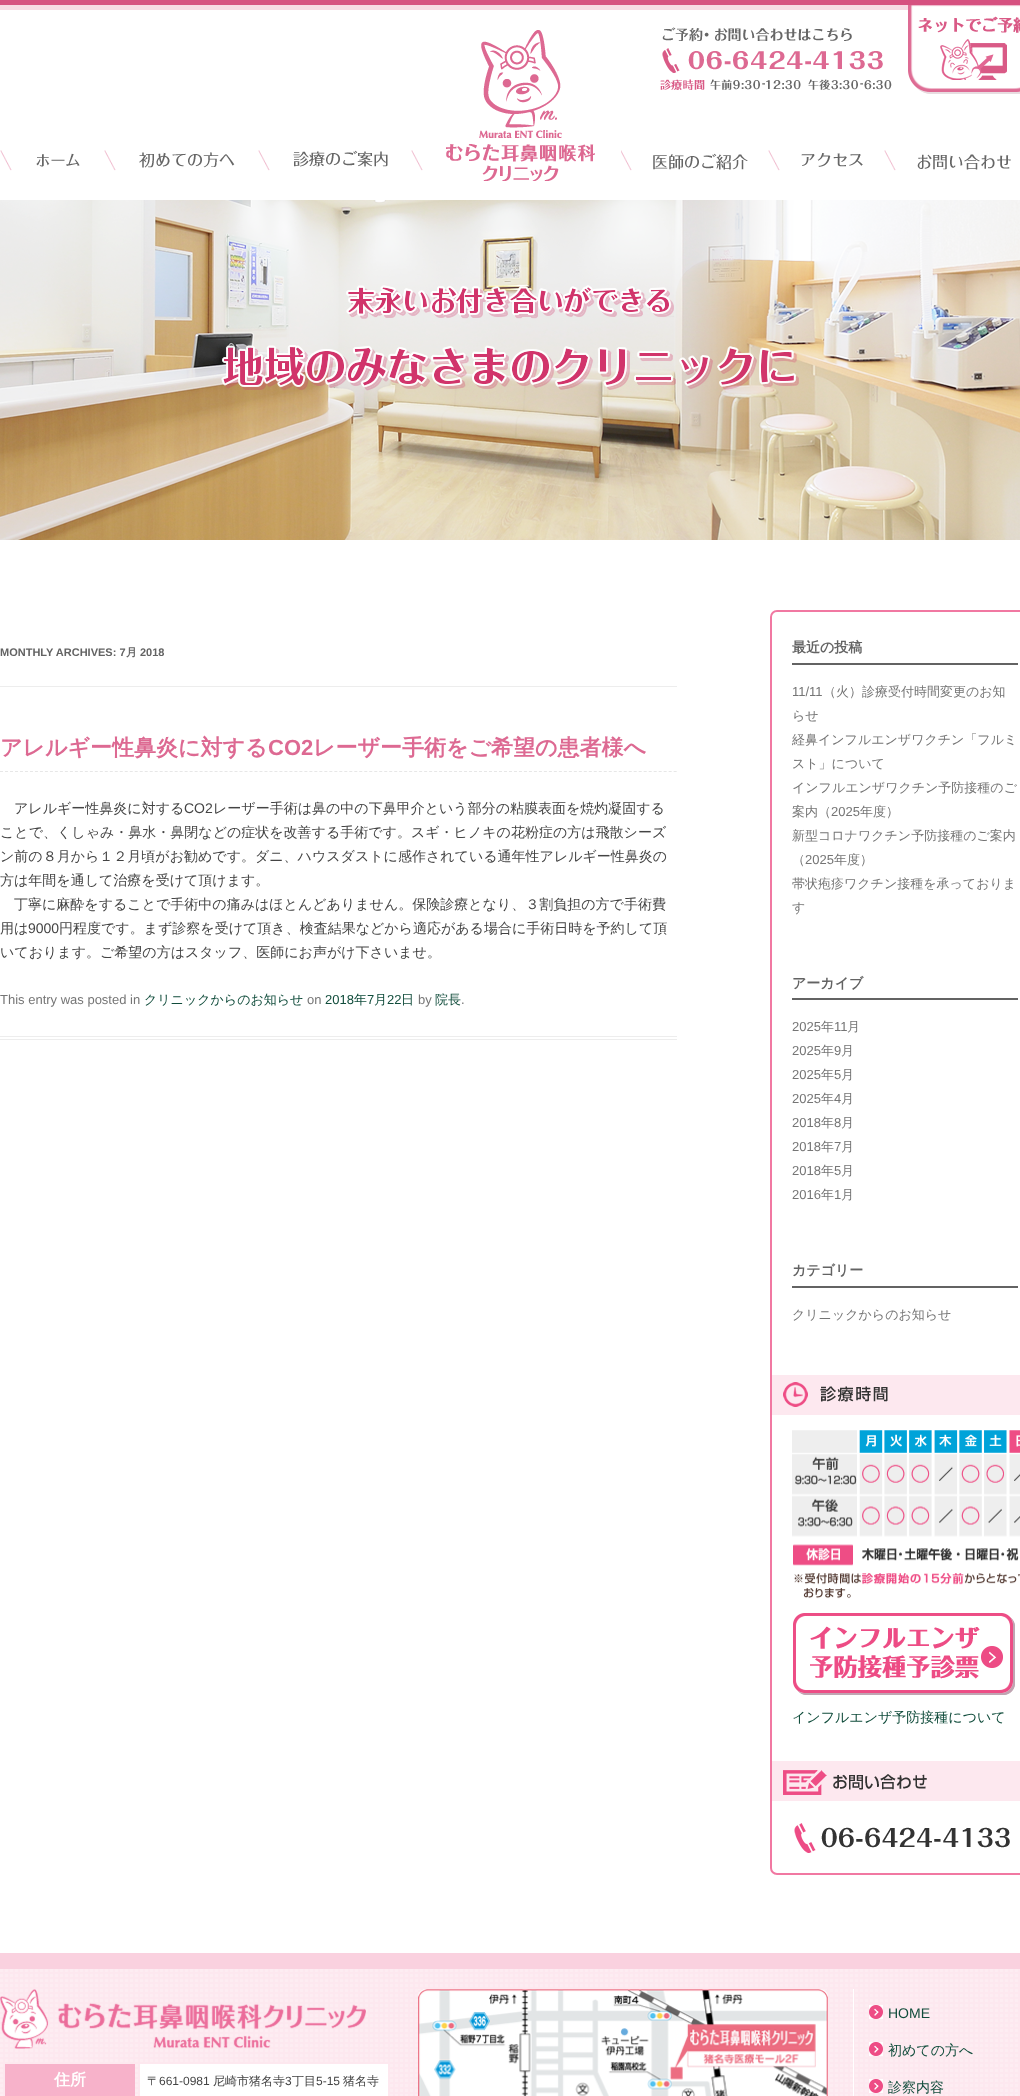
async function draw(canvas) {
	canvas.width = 1020;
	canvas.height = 2096;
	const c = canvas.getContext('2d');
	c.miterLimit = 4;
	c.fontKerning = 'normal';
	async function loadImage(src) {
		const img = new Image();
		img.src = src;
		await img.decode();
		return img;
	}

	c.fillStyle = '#fff';
	c.fillRect(0, 0, 1020, 2096);
	c.drawImage(await loadImage('img1.png'), 0, 0, 1020, 10);
	c.drawImage(await loadImage('img2.png'), 446, 30, 149, 151);
	c.drawImage(await loadImage('img3.png'), 660, 27, 232, 63);
	c.drawImage(await loadImage('img4.png'), 908, 5, 112, 89);
	c.drawImage(await loadImage('img5.png'), 0, 150, 109, 21);
	c.drawImage(await loadImage('img6.png'), 109, 150, 158, 21);
	c.drawImage(await loadImage('img7.png'), 267, 150, 156, 21);
	c.drawImage(await loadImage('img8.png'), 621, 150, 148, 21);
	c.drawImage(await loadImage('img9.png'), 769, 150, 94, 21);
	c.drawImage(await loadImage('img10.png'), 884, 150, 127, 21);
	c.drawImage(await loadImage('img11.png'), 0, 200, 1020, 340);
	c.fillStyle = '#ededed';
	c.fillRect(0, 686, 677, 1);
	c.font = 'bold 11px Liberation Sans';
	c.fillStyle = '#636363';
	c.fillText('MONTHLY ARCHIVES: 7', 0, 656);
	c.font = 'bold 11px WenQuanYi Zen Hei';
	c.fillText('月', 126, 656);
	c.font = 'bold 11px Liberation Sans';
	c.fillText('2018', 140, 656);
	c.fillStyle = '#ededed';
	c.fillRect(0, 1036, 677, 1);
	c.fillRect(0, 1039, 677, 1);
	c.beginPath();
	c.moveTo(0, 771.5);
	c.lineTo(677, 771.5);
	c.strokeStyle = '#e7e7e7';
	c.setLineDash([3, 1.99]);
	c.stroke();
	c.font = 'bold 22px WenQuanYi Zen Hei';
	c.fillStyle = '#dd6992';
	c.fillText('アレルギー性鼻炎に対する', 0, 755);
	c.font = 'bold 22px Liberation Sans';
	c.fillText('CO2', 268, 755);
	c.font = 'bold 22px WenQuanYi Zen Hei';
	c.fillText('レーザー手術をご希望の患者様へ', 313, 755);
	c.font = '500 14px WenQuanYi Zen Hei';
	c.fillStyle = '#444';
	c.fillText('アレルギー性鼻炎に対する', 14, 813);
	c.font = '14px Liberation Sans';
	c.fillText('CO2', 184, 813);
	c.font = '500 14px WenQuanYi Zen Hei';
	for (const [text, x, y] of [
		['レーザー手術は鼻の中の下鼻甲介という部分の粘膜表面を焼灼凝固する', 213, 813],
		['ことで、くしゃみ・鼻水・鼻閉などの症状を改善する手術です。スギ・ヒノキの花粉症の方は飛散シーズ', 0, 837],
		['ン前の８月から１２月頃がお勧めです。ダニ、ハウスダストに感作されている通年性アレルギー性鼻炎の', 0, 861],
		['方は年間を通して治療を受けて頂けます。', 0, 885],
		['丁寧に麻酔をすることで手術中の痛みはほとんどありません。保険診療となり、３割負担の方で手術費', 14, 909],
		['用は', 0, 933],
	]) {
		c.fillText(text, x, y);
	}
	c.font = '14px Liberation Sans';
	c.fillText('9000', 28, 933);
	c.font = '500 14px WenQuanYi Zen Hei';
	c.fillText('円程度です。まず診察を受けて頂き、検査結果などから適応がある場合に手術日時を予約して頂', 59, 933);
	c.fillText('いております。ご希望の方はスタッフ、医師にお声がけ下さいませ。', 0, 957);
	c.font = '13px Liberation Sans';
	c.fillStyle = '#757575';
	c.fillText('This entry was posted in', 0, 1004);
	c.font = '500 13px WenQuanYi Zen Hei';
	c.fillStyle = '#104c3b';
	c.fillText('クリニックからのお知らせ', 144, 1004);
	c.font = '13px Liberation Sans';
	c.fillStyle = '#757575';
	c.fillText('on', 307, 1004);
	c.fillStyle = '#104c3b';
	c.fillText('2018', 325, 1004);
	c.font = '500 13px WenQuanYi Zen Hei';
	c.fillText('年', 354, 1004);
	c.font = '13px Liberation Sans';
	c.fillText('7', 367, 1004);
	c.font = '500 13px WenQuanYi Zen Hei';
	c.fillText('月', 374, 1004);
	c.font = '13px Liberation Sans';
	c.fillText('22', 387, 1004);
	c.font = '500 13px WenQuanYi Zen Hei';
	c.fillText('日', 401, 1004);
	c.font = '13px Liberation Sans';
	c.fillStyle = '#757575';
	c.fillText('by', 418, 1004);
	c.font = '500 13px WenQuanYi Zen Hei';
	c.fillStyle = '#104c3b';
	c.fillText('院長', 435, 1004);
	c.font = '13px Liberation Sans';
	c.fillStyle = '#757575';
	c.fillText('.', 461, 1004);
	c.beginPath();
	c.roundRect(771, 611, 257, 1263, 6);
	c.strokeStyle = '#f178a2';
	c.lineWidth = 2;
	c.setLineDash([]);
	c.stroke();
	c.fillStyle = '#636363';
	c.fillRect(792, 663, 226, 2);
	c.font = 'bold 14px WenQuanYi Zen Hei';
	c.fillText('最近の投稿', 792, 652);
	c.font = '13px Liberation Sans';
	c.fillStyle = '#757575';
	c.fillText('11/11', 792, 696);
	c.font = '500 13px WenQuanYi Zen Hei';
	for (const [text, x, y] of [
		['（火）診療受付時間変更のお知', 823, 696],
		['らせ', 792, 720],
		['経鼻インフルエンザワクチン「フルミ', 792, 744],
		['スト」について', 792, 768],
		['インフルエンザワクチン予防接種のご', 792, 792],
		['案内（', 792, 816],
	]) {
		c.fillText(text, x, y);
	}
	c.font = '13px Liberation Sans';
	c.fillText('2025', 831, 816);
	c.font = '500 13px WenQuanYi Zen Hei';
	for (const [text, x, y] of [
		['年度）', 860, 816],
		['新型コロナワクチン予防接種のご案内', 792, 840],
		['（', 792, 864],
	]) {
		c.fillText(text, x, y);
	}
	c.font = '13px Liberation Sans';
	c.fillText('2025', 805, 864);
	c.font = '500 13px WenQuanYi Zen Hei';
	for (const [text, x, y] of [
		['年度）', 834, 864],
		['帯状疱疹ワクチン接種を承っておりま', 792, 888],
		['す', 792, 912],
	]) {
		c.fillText(text, x, y);
	}
	c.fillStyle = '#636363';
	c.fillRect(792, 998, 226, 2);
	c.font = 'bold 14px WenQuanYi Zen Hei';
	c.fillText('アーカイブ', 792, 988);
	c.font = '13px Liberation Sans';
	c.fillStyle = '#757575';
	c.fillText('2025', 792, 1031);
	c.font = '500 13px WenQuanYi Zen Hei';
	c.fillText('年', 821, 1031);
	c.font = '13px Liberation Sans';
	c.fillText('11', 834, 1031);
	c.font = '500 13px WenQuanYi Zen Hei';
	c.fillText('月', 847, 1031);
	c.font = '13px Liberation Sans';
	c.fillText('2025', 792, 1055);
	c.font = '500 13px WenQuanYi Zen Hei';
	c.fillText('年', 821, 1055);
	c.font = '13px Liberation Sans';
	c.fillText('9', 834, 1055);
	c.font = '500 13px WenQuanYi Zen Hei';
	c.fillText('月', 841, 1055);
	c.font = '13px Liberation Sans';
	c.fillText('2025', 792, 1079);
	c.font = '500 13px WenQuanYi Zen Hei';
	c.fillText('年', 821, 1079);
	c.font = '13px Liberation Sans';
	c.fillText('5', 834, 1079);
	c.font = '500 13px WenQuanYi Zen Hei';
	c.fillText('月', 841, 1079);
	c.font = '13px Liberation Sans';
	c.fillText('2025', 792, 1103);
	c.font = '500 13px WenQuanYi Zen Hei';
	c.fillText('年', 821, 1103);
	c.font = '13px Liberation Sans';
	c.fillText('4', 834, 1103);
	c.font = '500 13px WenQuanYi Zen Hei';
	c.fillText('月', 841, 1103);
	c.font = '13px Liberation Sans';
	c.fillText('2018', 792, 1127);
	c.font = '500 13px WenQuanYi Zen Hei';
	c.fillText('年', 821, 1127);
	c.font = '13px Liberation Sans';
	c.fillText('8', 834, 1127);
	c.font = '500 13px WenQuanYi Zen Hei';
	c.fillText('月', 841, 1127);
	c.font = '13px Liberation Sans';
	c.fillText('2018', 792, 1151);
	c.font = '500 13px WenQuanYi Zen Hei';
	c.fillText('年', 821, 1151);
	c.font = '13px Liberation Sans';
	c.fillText('7', 834, 1151);
	c.font = '500 13px WenQuanYi Zen Hei';
	c.fillText('月', 841, 1151);
	c.font = '13px Liberation Sans';
	c.fillText('2018', 792, 1175);
	c.font = '500 13px WenQuanYi Zen Hei';
	c.fillText('年', 821, 1175);
	c.font = '13px Liberation Sans';
	c.fillText('5', 834, 1175);
	c.font = '500 13px WenQuanYi Zen Hei';
	c.fillText('月', 841, 1175);
	c.font = '13px Liberation Sans';
	c.fillText('2016', 792, 1199);
	c.font = '500 13px WenQuanYi Zen Hei';
	c.fillText('年', 821, 1199);
	c.font = '13px Liberation Sans';
	c.fillText('1', 834, 1199);
	c.font = '500 13px WenQuanYi Zen Hei';
	c.fillText('月', 841, 1199);
	c.fillStyle = '#636363';
	c.fillRect(792, 1286, 226, 2);
	c.font = 'bold 14px WenQuanYi Zen Hei';
	c.fillText('カテゴリー', 792, 1275);
	c.font = '500 13px WenQuanYi Zen Hei';
	c.fillStyle = '#757575';
	c.fillText('クリニックからのお知らせ', 792, 1319);
	c.drawImage(await loadImage('img12.png'), 772, 1375, 248, 40);
	c.drawImage(await loadImage('img13.png'), 792, 1430, 228, 169);
	c.drawImage(await loadImage('img14.png'), 793, 1613, 222, 82);
	c.font = '500 14px WenQuanYi Zen Hei';
	c.fillStyle = '#104c3b';
	c.fillText('インフルエンザ予防接種について', 792, 1722);
	c.drawImage(await loadImage('img15.png'), 772, 1761, 248, 40);
	c.drawImage(await loadImage('img16.png'), 794, 1823, 216, 30);
	c.drawImage(await loadImage('img17.png'), 0, 1969, 1020, 127);
	c.fillStyle = '#fad1df';
	c.fillRect(0, 1953, 1020, 16);
	c.drawImage(await loadImage('img18.png'), 0, 1989, 366, 60);
	c.fillStyle = '#f7b2ca';
	c.fillRect(5, 2064, 130, 32);
	c.font = 'bold 16px WenQuanYi Zen Hei';
	c.fillStyle = '#fff';
	c.fillText('住所', 54, 2085);
	c.fillRect(140, 2064, 248, 32);
	c.font = '500 12px WenQuanYi Zen Hei';
	c.fillStyle = '#444';
	c.fillText('〒', 147, 2085);
	c.font = '12px Liberation Sans';
	c.fillText('661-0981', 159, 2085);
	c.font = '500 12px WenQuanYi Zen Hei';
	c.fillText('尼崎市猪名寺', 213, 2085);
	c.font = '12px Liberation Sans';
	c.fillText('3', 285, 2085);
	c.font = '500 12px WenQuanYi Zen Hei';
	c.fillText('丁目', 292, 2085);
	c.font = '12px Liberation Sans';
	c.fillText('5-15', 316, 2085);
	c.font = '500 12px WenQuanYi Zen Hei';
	c.fillText('猪名寺', 343, 2085);
	c.drawImage(await loadImage('img19.png'), 418, 1989, 410, 107);
	c.fillStyle = '#fff';
	c.fillRect(853, 1989, 1, 107);
	c.drawImage(await loadImage('img20.png'), 869, 2005, 14, 14);
	c.font = '14px Liberation Sans';
	c.fillStyle = '#104c3b';
	c.fillText('HOME', 888, 2018);
	c.drawImage(await loadImage('img20.png'), 869, 2042, 14, 14);
	c.font = '500 14px WenQuanYi Zen Hei';
	c.fillText('初めての方へ', 888, 2055);
	c.drawImage(await loadImage('img20.png'), 869, 2079, 14, 14);
	c.fillText('診察内容', 888, 2092);
}

draw(document.querySelector('canvas'));
